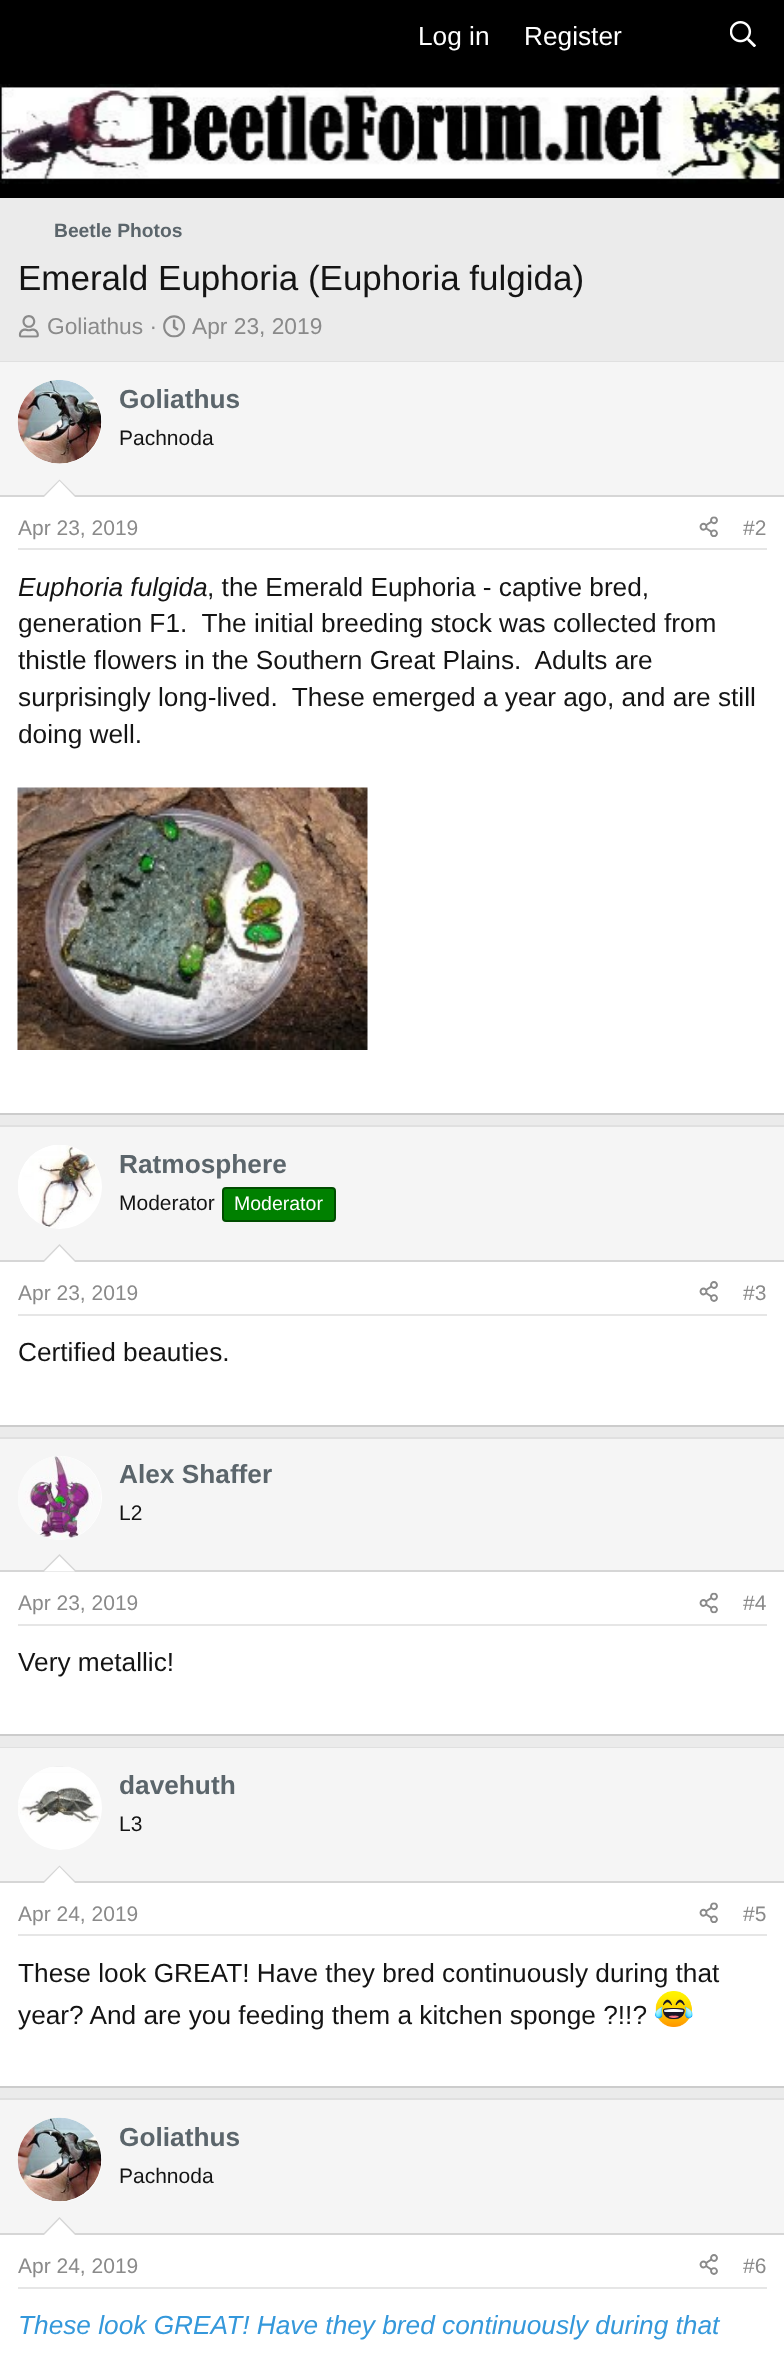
async function draw(canvas) {
	canvas.width = 784;
	canvas.height = 2362;
	const c = canvas.getContext('2d');
	c.miterLimit = 4;
	c.fontKerning = 'normal';
	async function loadImage(src) {
		const img = new Image();
		img.src = src;
		await img.decode();
		return img;
	}

	c.fillStyle = '#ebebeb';
	c.fillRect(0, 0, 784, 2362);
	c.fillStyle = '#000';
	c.fillRect(0, 0, 784, 198);
	c.font = '26.25px Liberation Sans';
	c.fillStyle = '#fff';
	c.fillText('Log in', 418, 45);
	c.fillText('Register', 524, 45);
	c.drawImage(await loadImage('img1.png'), 730, 21, 26, 26);
	c.drawImage(await loadImage('img2.png'), 0, 84, 784, 100);
	c.font = 'bold 19.25px Liberation Sans';
	c.fillStyle = '#5b656b';
	c.fillText('Beetle Photos', 54, 237);
	c.font = '35px Liberation Sans';
	c.fillStyle = '#141414';
	c.fillText('Emerald Euphoria (Euphoria fulgida)', 18, 290);
	c.drawImage(await loadImage('img3.png'), 18, 315, 21, 23);
	c.font = '22.75px Liberation Sans';
	c.fillStyle = '#8a8a8a';
	c.fillText('Goliathus ·', 47, 334);
	c.drawImage(await loadImage('img4.png'), 163, 315, 22, 23);
	c.fillText('Apr 23, 2019', 192, 334);
	for (const [x, y, w, h, color] of [
		[0, 497, 784, 616, '#fff'],
		[0, 361, 784, 1, '#e0e0e0'],
		[0, 1113, 784, 2, '#ccc'],
		[0, 362, 784, 133, '#f5f5f5'],
		[0, 495, 784, 2, '#d6d6d6'],
	]) {
		c.fillStyle = color;
		c.fillRect(x, y, w, h);
	}
	c.fillStyle = '#fff';
	c.beginPath();
	c.arc(60, 422, 42, 0, 2 * Math.PI);
	c.fill();
	c.drawImage(await loadImage('img5.png'), 17, 380, 85, 84);
	c.font = 'bold 26.25px Liberation Sans';
	c.fillStyle = '#5b656b';
	c.fillText('Goliathus', 119, 408);
	c.font = '21px Liberation Sans';
	c.fillStyle = '#141414';
	c.fillText('Pachnoda', 119, 445);
	c.fillStyle = '#d6d6d6';
	c.beginPath();
	c.moveTo(77, 497);
	c.lineTo(42, 497);
	c.lineTo(59.5, 479.5);
	c.closePath();
	c.fill();
	c.fillStyle = '#fff';
	c.beginPath();
	c.moveTo(75, 497);
	c.lineTo(44, 497);
	c.lineTo(59.5, 481);
	c.closePath();
	c.fill();
	c.fillStyle = '#e6e6e6';
	c.fillRect(18, 548, 749, 2);
	c.fillStyle = '#8a8a8a';
	c.fillText('Apr 23, 2019', 18, 535);
	c.drawImage(await loadImage('img6.png'), 699, 516, 19, 21);
	c.fillText('#2', 743, 535);
	c.font = 'italic 26.25px Liberation Sans';
	c.fillStyle = '#141414';
	c.fillText('Euphoria fulgida', 18, 596);
	c.font = '26.25px Liberation Sans';
	for (const [text, x, y] of [
		[', the Emerald Euphoria - captive bred,', 207, 596],
		['generation F1.  The initial breeding stock was collected from', 18, 632],
		['thistle flowers in the Southern Great Plains.  Adults are', 18, 669],
		['surprisingly long-lived.  These emerged a year ago, and are still', 18, 706],
		['doing well.', 18, 743],
	]) {
		c.fillText(text, x, y);
	}
	c.drawImage(await loadImage('img7.png'), 17, 787, 351, 263);
	for (const [x, y, w, h, color] of [
		[0, 1262, 784, 163, '#fff'],
		[0, 1125, 784, 2, '#e0e0e0'],
		[0, 1425, 784, 2, '#ccc'],
		[0, 1127, 784, 133, '#f5f5f5'],
		[0, 1260, 784, 2, '#d6d6d6'],
	]) {
		c.fillStyle = color;
		c.fillRect(x, y, w, h);
	}
	c.fillStyle = '#fff';
	c.beginPath();
	c.arc(60, 1187, 42, 0, 2 * Math.PI);
	c.fill();
	c.drawImage(await loadImage('img8.png'), 18, 1145, 82, 83);
	c.font = 'bold 26.25px Liberation Sans';
	c.fillStyle = '#5b656b';
	c.fillText('Ratmosphere', 119, 1173);
	c.font = '21px Liberation Sans';
	c.fillStyle = '#141414';
	c.fillText('Moderator', 119, 1210);
	c.fillStyle = '#008000';
	c.beginPath();
	c.roundRect(223, 1188, 112, 33, 3);
	c.fill();
	c.strokeStyle = '#004d00';
	c.lineWidth = 2;
	c.stroke();
	c.font = '19.5px Liberation Sans';
	c.fillStyle = '#fff';
	c.fillText('Moderator', 234, 1210);
	c.fillStyle = '#d6d6d6';
	c.beginPath();
	c.moveTo(77, 1262);
	c.lineTo(42, 1262);
	c.lineTo(59.5, 1244);
	c.closePath();
	c.fill();
	c.fillStyle = '#fff';
	c.beginPath();
	c.moveTo(75, 1262);
	c.lineTo(44, 1262);
	c.lineTo(59.5, 1246);
	c.closePath();
	c.fill();
	c.fillStyle = '#e6e6e6';
	c.fillRect(18, 1314, 749, 2);
	c.font = '21px Liberation Sans';
	c.fillStyle = '#8a8a8a';
	c.fillText('Apr 23, 2019', 18, 1300);
	c.drawImage(await loadImage('img9.png'), 699, 1281, 19, 21);
	c.fillText('#3', 743, 1300);
	c.font = '26.25px Liberation Sans';
	c.fillStyle = '#141414';
	c.fillText('Certified beauties.', 18, 1361);
	for (const [x, y, w, h, color] of [
		[0, 1572, 784, 162, '#fff'],
		[0, 1437, 784, 2, '#e0e0e0'],
		[0, 1734, 784, 2, '#ccc'],
		[0, 1439, 784, 131, '#f5f5f5'],
		[0, 1570, 784, 2, '#d6d6d6'],
	]) {
		c.fillStyle = color;
		c.fillRect(x, y, w, h);
	}
	c.fillStyle = '#fff';
	c.beginPath();
	c.arc(60, 1498, 42, 0, 2 * Math.PI);
	c.fill();
	c.drawImage(await loadImage('img10.png'), 18, 1456, 83, 84);
	c.font = 'bold 26.25px Liberation Sans';
	c.fillStyle = '#5b656b';
	c.fillText('Alex Shaffer', 119, 1483);
	c.font = '21px Liberation Sans';
	c.fillStyle = '#141414';
	c.fillText('L2', 119, 1520);
	c.fillStyle = '#d6d6d6';
	c.beginPath();
	c.moveTo(77, 1571.5);
	c.lineTo(42, 1571.5);
	c.lineTo(59.5, 1554);
	c.closePath();
	c.fill();
	c.fillStyle = '#fff';
	c.beginPath();
	c.moveTo(75, 1571.5);
	c.lineTo(44, 1571.5);
	c.lineTo(59.5, 1556);
	c.closePath();
	c.fill();
	c.fillStyle = '#e6e6e6';
	c.fillRect(18, 1624, 749, 2);
	c.fillStyle = '#8a8a8a';
	c.fillText('Apr 23, 2019', 18, 1610);
	c.drawImage(await loadImage('img11.png'), 699, 1592, 19, 22);
	c.fillText('#4', 743, 1610);
	c.font = '26.25px Liberation Sans';
	c.fillStyle = '#141414';
	c.fillText('Very metallic!', 18, 1671);
	for (const [x, y, w, h, color] of [
		[0, 1883, 784, 203, '#fff'],
		[0, 1747, 784, 1, '#e0e0e0'],
		[0, 2086, 784, 2, '#ccc'],
		[0, 1748, 784, 133, '#f5f5f5'],
		[0, 1881, 784, 2, '#d6d6d6'],
	]) {
		c.fillStyle = color;
		c.fillRect(x, y, w, h);
	}
	c.fillStyle = '#fff';
	c.beginPath();
	c.arc(60, 1808, 42, 0, 2 * Math.PI);
	c.fill();
	c.drawImage(await loadImage('img12.png'), 18, 1766, 82, 57);
	c.font = 'bold 26.25px Liberation Sans';
	c.fillStyle = '#5b656b';
	c.fillText('davehuth', 119, 1794);
	c.font = '21px Liberation Sans';
	c.fillStyle = '#141414';
	c.fillText('L3', 119, 1831);
	c.fillStyle = '#d6d6d6';
	c.beginPath();
	c.moveTo(77, 1883);
	c.lineTo(42, 1883);
	c.lineTo(59.5, 1865.5);
	c.closePath();
	c.fill();
	c.fillStyle = '#fff';
	c.beginPath();
	c.moveTo(75, 1883);
	c.lineTo(44, 1883);
	c.lineTo(59.5, 1867);
	c.closePath();
	c.fill();
	c.fillStyle = '#e6e6e6';
	c.fillRect(18, 1934, 749, 2);
	c.fillStyle = '#8a8a8a';
	c.fillText('Apr 24, 2019', 18, 1921);
	c.drawImage(await loadImage('img6.png'), 699, 1902, 19, 21);
	c.fillText('#5', 743, 1921);
	c.font = '26.25px Liberation Sans';
	c.fillStyle = '#141414';
	c.fillText('These look GREAT! Have they bred continuously during that', 18, 1982);
	c.fillText('year? And are you feeding them a kitchen sponge ?!!?', 18, 2024);
	c.drawImage(await loadImage('img13.png'), 655, 1991, 38, 36);
	for (const [x, y, w, h, color] of [
		[0, 2235, 784, 127, '#fff'],
		[0, 2098, 784, 2, '#e0e0e0'],
		[0, 2100, 784, 133, '#f5f5f5'],
		[0, 2233, 784, 2, '#d6d6d6'],
	]) {
		c.fillStyle = color;
		c.fillRect(x, y, w, h);
	}
	c.fillStyle = '#fff';
	c.beginPath();
	c.arc(60, 2160, 42, 0, 2 * Math.PI);
	c.fill();
	c.drawImage(await loadImage('img14.png'), 17, 2117, 85, 85);
	c.font = 'bold 26.25px Liberation Sans';
	c.fillStyle = '#5b656b';
	c.fillText('Goliathus', 119, 2146);
	c.font = '21px Liberation Sans';
	c.fillStyle = '#141414';
	c.fillText('Pachnoda', 119, 2183);
	c.fillStyle = '#d6d6d6';
	c.beginPath();
	c.moveTo(77, 2235);
	c.lineTo(42, 2235);
	c.lineTo(59.5, 2217);
	c.closePath();
	c.fill();
	c.fillStyle = '#fff';
	c.beginPath();
	c.moveTo(75, 2235);
	c.lineTo(44, 2235);
	c.lineTo(59.5, 2219);
	c.closePath();
	c.fill();
	c.fillStyle = '#e6e6e6';
	c.fillRect(18, 2287, 749, 2);
	c.fillStyle = '#8a8a8a';
	c.fillText('Apr 24, 2019', 18, 2273);
	c.drawImage(await loadImage('img9.png'), 699, 2254, 19, 21);
	c.fillText('#6', 743, 2273);
	c.font = 'italic 26.25px Liberation Sans';
	c.fillStyle = '#3498db';
	c.fillText('These look GREAT! Have they bred continuously during that', 18, 2334);
}

draw(document.querySelector('canvas'));
